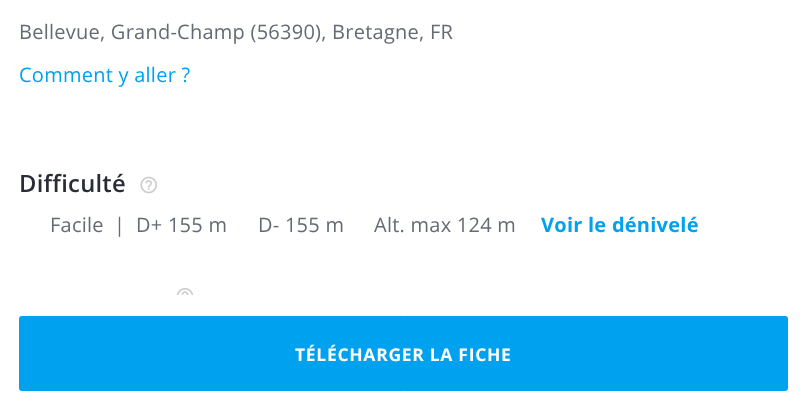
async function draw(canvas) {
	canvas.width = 806;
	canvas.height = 411;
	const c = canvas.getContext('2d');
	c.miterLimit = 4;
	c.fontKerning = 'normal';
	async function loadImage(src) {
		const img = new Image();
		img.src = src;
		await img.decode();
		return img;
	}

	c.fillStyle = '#fff';
	c.fillRect(0, 0, 806, 411);
	c.letterSpacing = '0.25px';
	c.font = '20px Open Sans';
	c.fillStyle = '#666a73';
	c.fillText('Bellevue, Grand-Champ (56390), Bretagne, FR', 19, 39);
	c.fillStyle = '#00a1ee';
	c.fillText('Comment y aller ?', 19, 82);
	c.font = '600 23.75px Open Sans';
	c.fillStyle = '#282c35';
	c.fillText('Difficulté', 19, 192);
	c.drawImage(await loadImage('img1.png'), 140, 176, 17, 18);
	c.font = '20px Open Sans';
	c.fillStyle = '#666a73';
	for (const [text, x, y] of [
		['Facile', 50, 232],
		['|', 114, 232],
		['D+ 155 m', 136, 232],
		['D- 155 m', 258, 232],
		['Alt. max 124 m', 374, 232],
	]) {
		c.fillText(text, x, y);
	}
	c.font = 'bold 20px Open Sans';
	c.fillStyle = '#00a1ee';
	c.fillText('Voir le dénivelé', 541, 232);
	c.drawImage(await loadImage('img2.png'), 176, 288, 18, 7);
	c.beginPath();
	c.roundRect(19.5, 316.5, 768, 74, 2);
	c.fill();
	c.strokeStyle = '#00a1ee';
	c.stroke();
	c.letterSpacing = '0.7px';
	c.font = 'bold 17.5px Open Sans';
	c.fillStyle = '#fff';
	c.fillText('TÉLÉCHARGER LA FICHE', 295, 361);
}

draw(document.querySelector('canvas'));
